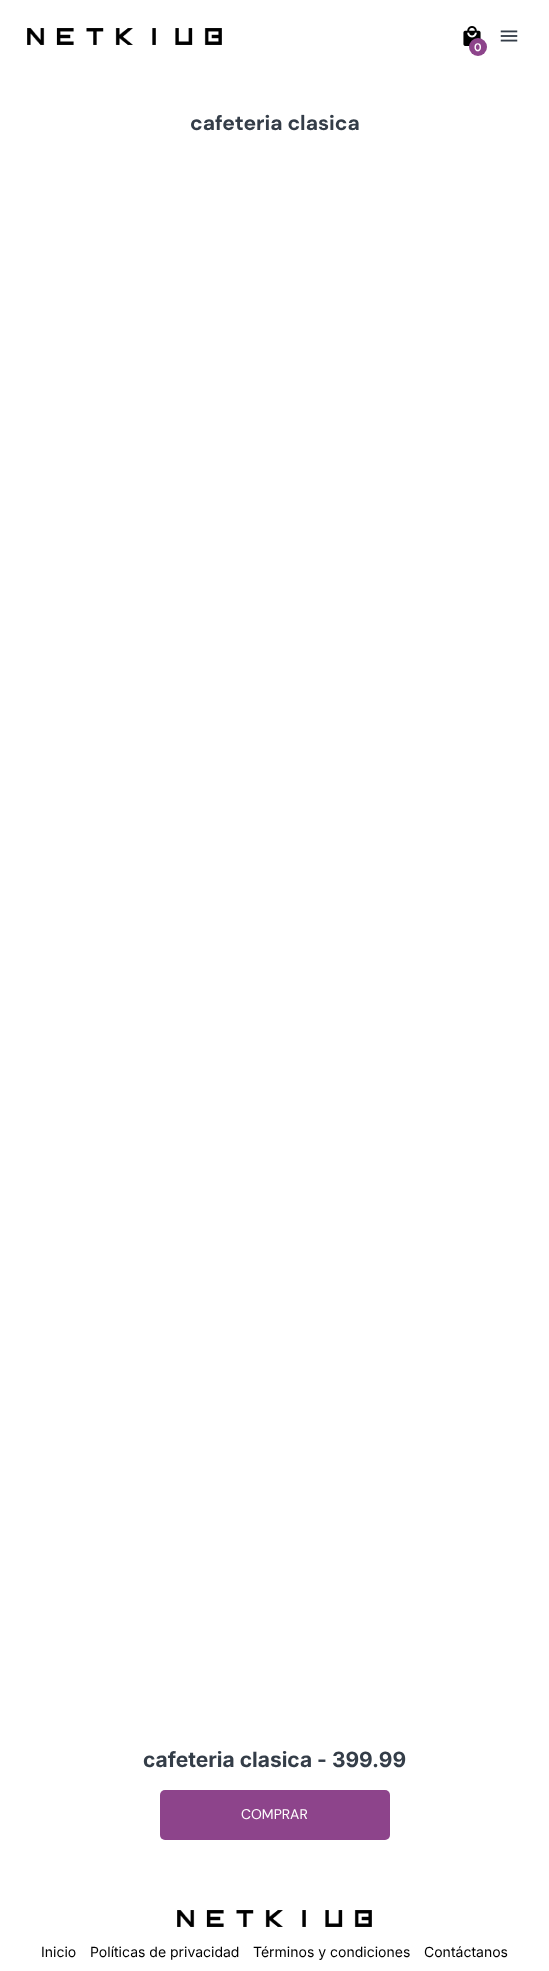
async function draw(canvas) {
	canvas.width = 549;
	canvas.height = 1971;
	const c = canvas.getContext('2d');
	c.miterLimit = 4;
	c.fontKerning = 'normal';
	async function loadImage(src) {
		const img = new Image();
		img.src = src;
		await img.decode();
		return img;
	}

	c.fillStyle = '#fff';
	c.fillRect(0, 0, 549, 1971);
	c.drawImage(await loadImage('img1.png'), 27, 28, 195, 17);
	c.drawImage(await loadImage('img2.png'), 500, 30, 18, 12);
	c.drawImage(await loadImage('img3.png'), 463, 26, 18, 20);
	c.fillStyle = '#8d448b';
	c.beginPath();
	c.arc(478, 47, 9, 0, 2 * Math.PI);
	c.fill();
	c.font = '600 11px DM Sans';
	c.fillStyle = '#fff';
	c.fillText('0', 474, 51);
	c.font = 'bold 21px DM Sans';
	c.fillStyle = '#343d48';
	c.fillText('cafeteria clasica', 190, 130);
	c.font = 'bold 21px Inter';
	c.fillText('cafeteria clasica - 399.99', 143, 1767);
	c.fillStyle = '#8d448b';
	c.beginPath();
	c.roundRect(160, 1790, 230, 50, 5);
	c.fill();
	c.font = '14px DM Sans';
	c.fillStyle = '#fff';
	c.fillText('COMPRAR', 241, 1819);
	c.drawImage(await loadImage('img1.png'), 177, 1910, 195, 17);
	c.font = '14px Inter';
	c.fillStyle = '#000';
	for (const [text, x, y] of [
		['Inicio', 41, 1957],
		['Políticas de privacidad', 90, 1957],
		['Términos y condiciones', 253, 1957],
		['Contáctanos', 424, 1957],
	]) {
		c.fillText(text, x, y);
	}
}

draw(document.querySelector('canvas'));
